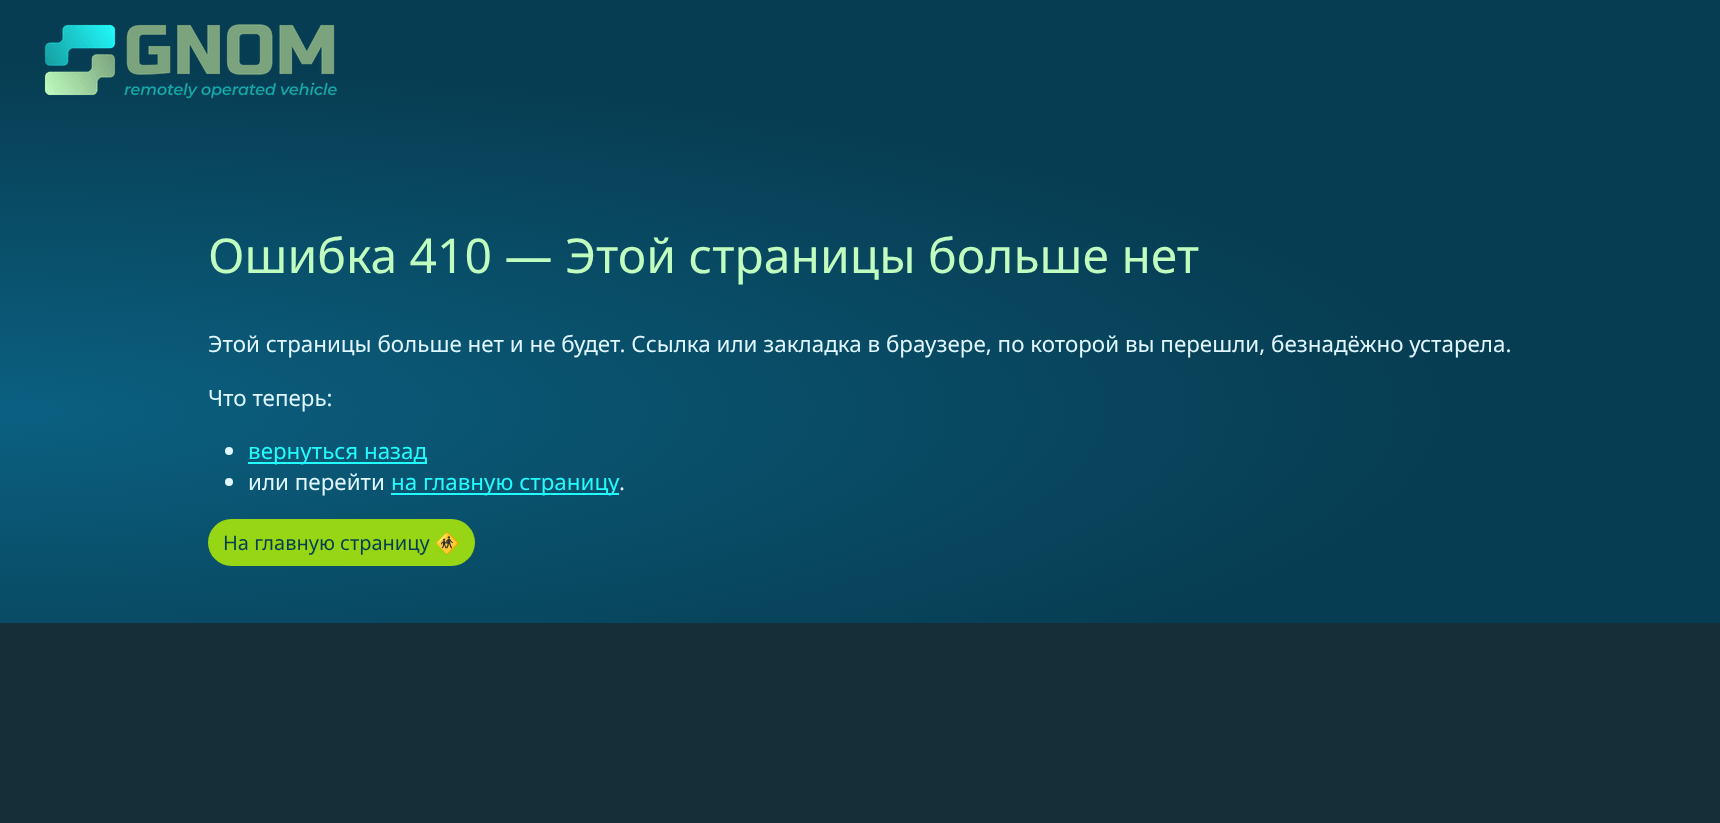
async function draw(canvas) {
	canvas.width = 1720;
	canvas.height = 823;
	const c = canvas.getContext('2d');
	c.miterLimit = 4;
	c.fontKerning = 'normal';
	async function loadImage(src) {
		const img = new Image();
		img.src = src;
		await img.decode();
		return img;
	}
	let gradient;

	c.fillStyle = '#fff';
	c.fillRect(0, 0, 1720, 823);
	gradient = c.createRadialGradient(0, 1721.62, 0, 0, 1721.62, 2432);
	gradient.addColorStop(0, '#0b6081');
	gradient.addColorStop(0.6, '#073d52');
	c.fillStyle = gradient;
	c.beginPath();
	c.rect(0, 0, 1720, 623);
	c.save();
	c.clip();
	c.scale(1, 582 / 2432);
	c.fillRect(0, 0, 1720, 3440);
	c.restore();
	c.drawImage(await loadImage('img1.png'), 44, 24, 293, 75);
	c.font = '48px Noto Sans';
	c.fillStyle = '#c0fdbf';
	c.fillText('Ошибка 410 — Этой страницы больше нет', 208, 273);
	c.font = '22.4px Noto Sans';
	c.fillStyle = '#e0f7ff';
	c.fillText('Этой страницы больше нет и не будет. Ссылка или закладка в браузере, по которой вы перешли, безнадёжно устарела.', 208, 352);
	c.fillText('Что теперь:', 208, 406);
	c.beginPath();
	c.arc(229, 451, 4, 0, 2 * Math.PI);
	c.fill();
	c.fillStyle = '#23fbfc';
	c.fillRect(248, 462, 179, 2);
	c.fillText('вернуться назад', 248, 459);
	c.fillStyle = '#e0f7ff';
	c.beginPath();
	c.arc(229, 482, 4, 0, 2 * Math.PI);
	c.fill();
	c.fillText('или перейти', 248, 490);
	c.fillStyle = '#23fbfc';
	c.fillRect(391, 493, 228, 2);
	c.fillText('на главную страницу', 391, 490);
	c.fillStyle = '#e0f7ff';
	c.fillText('.', 619, 490);
	c.fillStyle = '#96d615';
	c.beginPath();
	c.roundRect(208, 519, 267, 47, 23.5);
	c.fill();
	c.font = '20px Noto Sans';
	c.fillStyle = '#073d52';
	c.fillText('На главную страницу', 223, 550);
	c.font = '20px Noto Color Emoji';
	c.fillText('🚸', 435, 550);
	c.fillStyle = '#152e37';
	c.fillRect(0, 623, 1720, 200);
}

draw(document.querySelector('canvas'));
